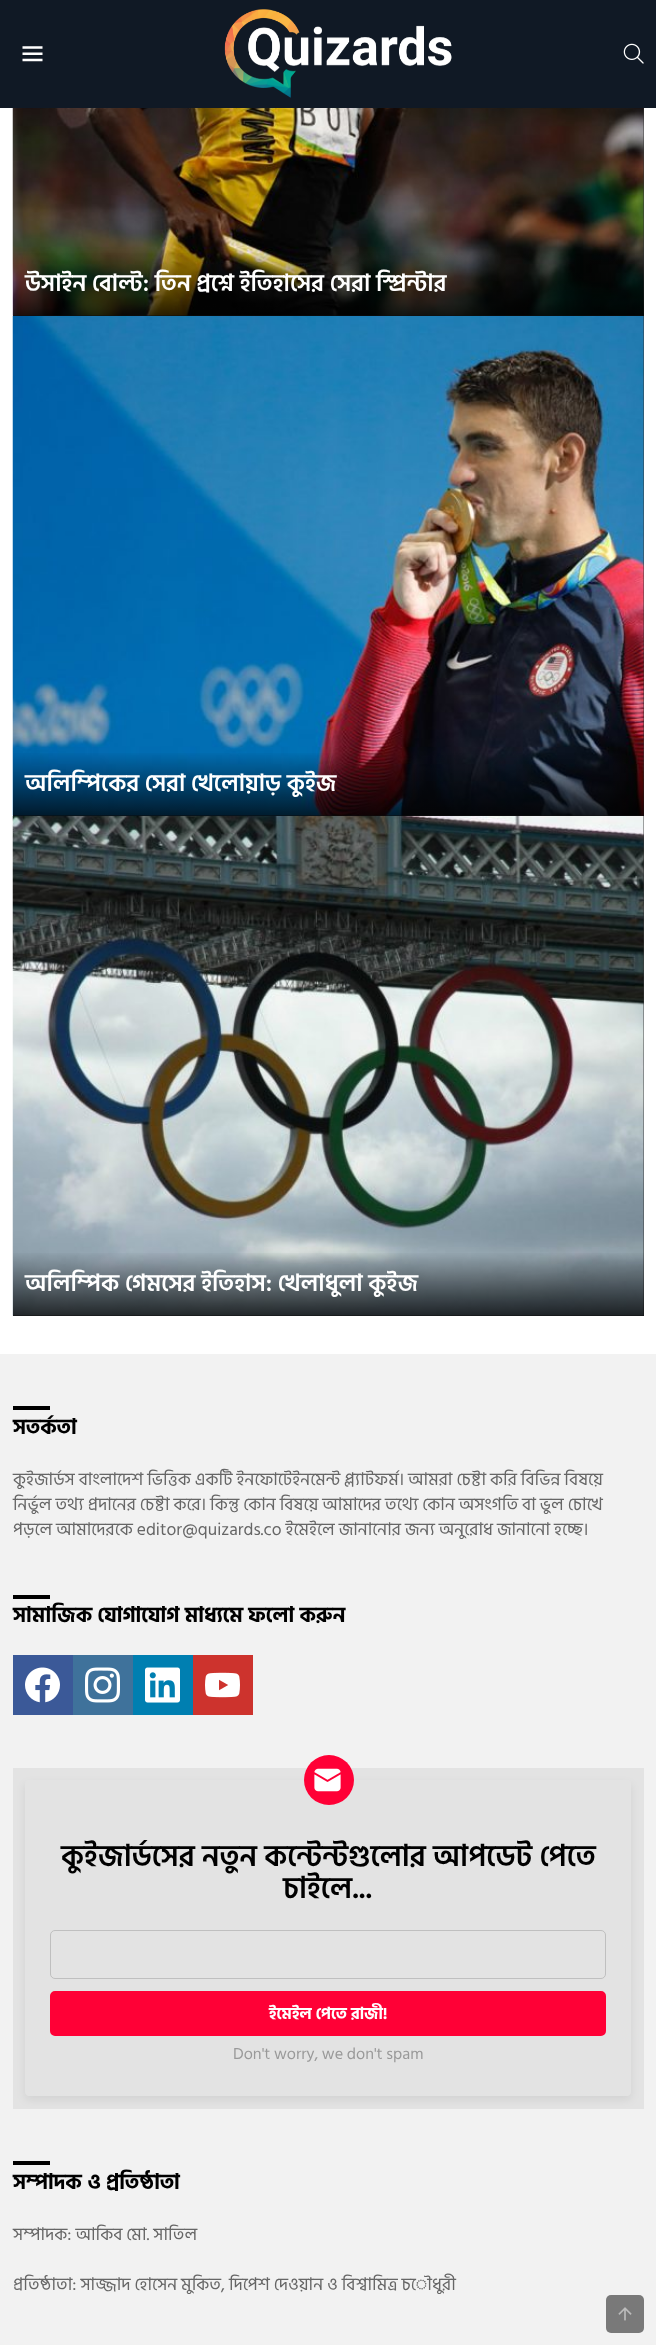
async function draw(canvas) {
	canvas.width = 656;
	canvas.height = 2345;
	const c = canvas.getContext('2d');
	c.miterLimit = 4;
	c.fontKerning = 'normal';
	async function loadImage(src) {
		const img = new Image();
		img.src = src;
		await img.decode();
		return img;
	}
	let gradient;

	c.fillStyle = '#fff';
	c.fillRect(0, 0, 656, 2345);
	c.fillStyle = '#101925';
	c.fillRect(0, 0, 656, 108);
	c.drawImage(await loadImage('img1.png'), 22, 46, 21, 16);
	c.drawImage(await loadImage('img2.png'), 224, 9, 228, 89);
	c.drawImage(await loadImage('img3.png'), 623, 43, 21, 21);
	c.fillStyle = '#333';
	c.fillRect(13, 108, 631, 1208);
	c.drawImage(await loadImage('img4.png'), 12, 108, 632, 208);
	c.drawImage(await loadImage('img5.png'), 12, 315, 632, 501);
	gradient = c.createLinearGradient(328, 251, 328, 316);
	gradient.addColorStop(0, '#00000000');
	gradient.addColorStop(1, '#000000bf');
	c.fillStyle = gradient;
	c.fillRect(13, 253, 631, 63);
	c.font = '600 23.75px Hind Siliguri';
	c.fillStyle = '#fff';
	c.fillText('উসাইন বোল্ট: তিন প্রশ্নে ইতিহাসের সেরা স্প্রিন্টার', 25, 291);
	c.drawImage(await loadImage('img6.png'), 12, 815, 632, 501);
	gradient = c.createLinearGradient(328, 751, 328, 816);
	gradient.addColorStop(0, '#00000000');
	gradient.addColorStop(1, '#000000bf');
	c.fillStyle = gradient;
	c.fillRect(13, 753, 631, 63);
	c.fillStyle = '#fff';
	c.fillText('অলিম্পিকের সেরা খেলোয়াড় কুইজ', 25, 791);
	gradient = c.createLinearGradient(328, 1251, 328, 1316);
	gradient.addColorStop(0, '#00000000');
	gradient.addColorStop(1, '#000000bf');
	c.fillStyle = gradient;
	c.fillRect(13, 1253, 631, 63);
	c.fillStyle = '#fff';
	c.fillText('অলিম্পিক গেমসের ইতিহাস: খেলাধুলা কুইজ', 25, 1291);
	c.fillStyle = '#f2f2f2';
	c.fillRect(0, 1354, 656, 991);
	c.fillStyle = '#000';
	c.fillRect(13, 1406, 37, 4);
	c.font = 'bold 21.25px Hind Siliguri';
	c.fillText('সতর্কতা', 13, 1434);
	c.font = '17.5px Hind Siliguri';
	c.fillStyle = '#666';
	for (const [text, x, y] of [
		['কুইজার্ডস বাংলাদেশ ভিত্তিক একটি ইনফোটেইনমেন্ট প্ল্যাটফর্ম। আমরা চেষ্টা করি বিভিন্ন বিষয়ে', 13, 1485],
		['নির্ভুল তথ্য প্রদানের চেষ্টা করে। কিন্তু কোন বিষয়ে আমাদের তথ্যে কোন অসংগতি বা ভুল চোখে', 13, 1510],
		['পড়লে আমাদেরকে editor@quizards.co ইমেইলে জানানোর জন্য অনুরোধ জানানো হচ্ছে।', 13, 1535],
	]) {
		c.fillText(text, x, y);
	}
	c.fillStyle = '#000';
	c.fillRect(13, 1595, 37, 4);
	c.font = 'bold 21.25px Hind Siliguri';
	c.fillText('সামাজিক যোগাযোগ মাধ্যমে ফলো করুন', 13, 1622);
	c.fillStyle = '#3b5998';
	c.fillRect(13, 1655, 60, 60);
	c.drawImage(await loadImage('img7.png'), 25, 1667, 35, 36);
	c.fillStyle = '#3f729b';
	c.fillRect(73, 1655, 60, 60);
	c.drawImage(await loadImage('img8.png'), 85, 1667, 35, 36);
	c.fillStyle = '#007fb1';
	c.fillRect(133, 1655, 60, 60);
	c.drawImage(await loadImage('img9.png'), 145, 1667, 35, 36);
	c.fillStyle = '#cd332d';
	c.fillRect(193, 1655, 60, 60);
	c.drawImage(await loadImage('img10.png'), 205, 1672, 35, 26);
	c.fillStyle = '#e3e3e3';
	c.fillRect(13, 1768, 631, 341);
	c.save();
	c.beginPath();
	c.moveTo(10, 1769);
	c.lineTo(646, 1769);
	c.lineTo(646, 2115);
	c.lineTo(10, 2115);
	c.closePath();
	c.moveTo(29, 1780);
	c.lineTo(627, 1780);
	c.bezierCurveTo(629, 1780, 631, 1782, 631, 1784);
	c.lineTo(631, 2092);
	c.bezierCurveTo(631, 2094, 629, 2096, 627, 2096);
	c.lineTo(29, 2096);
	c.bezierCurveTo(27, 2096, 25, 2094, 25, 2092);
	c.lineTo(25, 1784);
	c.bezierCurveTo(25, 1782, 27, 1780, 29, 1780);
	c.closePath();
	c.clip('evenodd');
	c.fillStyle = '#00000012';
	c.filter = 'blur(4.5px)';
	c.beginPath();
	c.roundRect(25, 1784, 606, 316, 4);
	c.fill();
	c.filter = 'none';
	c.restore();
	c.fillStyle = '#ff0036';
	c.beginPath();
	c.arc(329, 1780, 25, 0, 2 * Math.PI);
	c.fill();
	c.drawImage(await loadImage('img11.png'), 314, 1768, 27, 24);
	c.font = '600 30px Hind Siliguri';
	c.fillStyle = '#000';
	c.fillText('কুইজার্ডসের নতুন কন্টেন্টগুলোর আপডেট পেতে', 61, 1866);
	c.fillText('চাইলে...', 283, 1898);
	c.beginPath();
	c.roundRect(50.5, 1930.5, 555, 48, 4.5);
	c.strokeStyle = '#bfbfbf';
	c.stroke();
	c.fillStyle = '#ff0036';
	c.beginPath();
	c.roundRect(51.5, 1992.5, 553, 42, 3.5);
	c.fill();
	c.strokeStyle = '#ff0036';
	c.lineWidth = 3;
	c.stroke();
	c.font = 'bold 16.25px Hind Siliguri';
	c.fillStyle = '#fff';
	c.fillText('ইমেইল পেতে রাজী!', 269, 2019);
	c.font = '16.25px Hind Siliguri';
	c.fillStyle = '#999';
	c.fillText('Don\'t worry, we don\'t spam', 233, 2059);
	c.fillStyle = '#000';
	c.fillRect(13, 2161, 37, 4);
	c.font = 'bold 21.25px Hind Siliguri';
	c.fillText('সম্পাদক ও প্রতিষ্ঠাতা', 13, 2189);
	c.font = '17.5px Hind Siliguri';
	c.fillStyle = '#666';
	c.fillText('সম্পাদক: আকিব মো. সাতিল', 13, 2240);
	c.fillText('প্রতিষ্ঠাতা: সাজ্জাদ হোসেন মুকিত, দিপেশ দেওয়ান ও বিশ্বামিত্র চৌধুরী', 13, 2290);
	c.fillStyle = '#797979';
	c.beginPath();
	c.roundRect(606, 2295, 38, 38, 5);
	c.fill();
	c.drawImage(await loadImage('img12.png'), 618, 2307, 14, 14);
}

draw(document.querySelector('canvas'));
